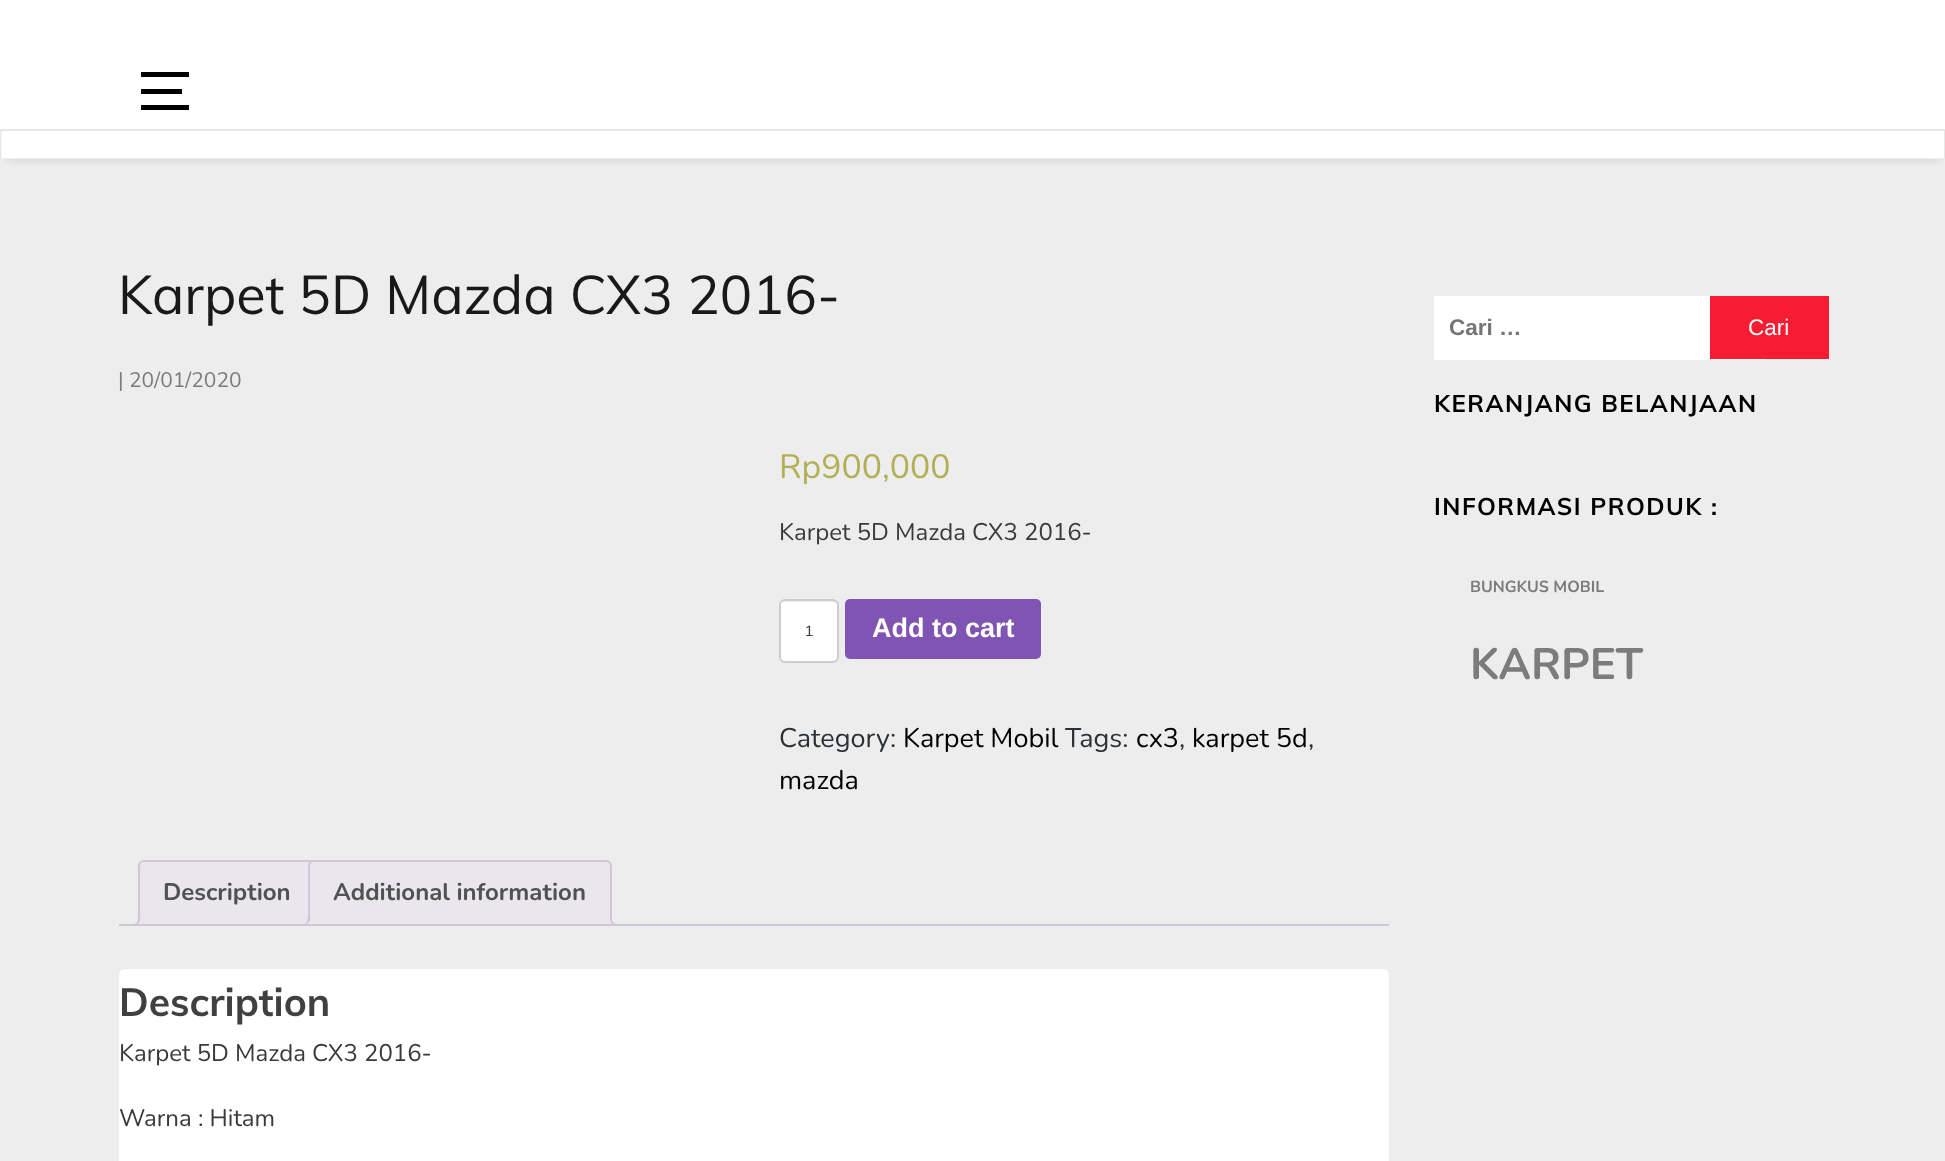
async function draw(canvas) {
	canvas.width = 1945;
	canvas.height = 1161;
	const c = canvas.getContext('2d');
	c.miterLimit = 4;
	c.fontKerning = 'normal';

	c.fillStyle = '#ededed';
	c.fillRect(0, 0, 1945, 1161);
	for (const [x, y, w, h, color] of [
		[0, 0, 1945, 159, '#fff'],
		[141, 89, 41, 5, '#000'],
		[141, 72, 48, 5, '#000'],
		[141, 105, 48, 5, '#000'],
	]) {
		c.fillStyle = color;
		c.fillRect(x, y, w, h);
	}
	c.save();
	c.beginPath();
	c.rect(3, 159, 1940, 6);
	c.clip();
	c.fillStyle = '#00000026';
	c.filter = 'blur(6px)';
	c.beginPath();
	c.rect(6, 140, 1934, 18);
	c.fill();
	c.filter = 'none';
	c.restore();
	c.fillStyle = '#e7e7e7';
	c.fillRect(0, 129, 1945, 2);
	c.beginPath();
	c.moveTo(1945.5, 129);
	c.lineTo(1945.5, 159);
	c.lineTo(1944, 157.5);
	c.lineTo(1944, 130.5);
	c.closePath();
	c.fill();
	c.fillStyle = '#00000012';
	c.beginPath();
	c.moveTo(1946, 159);
	c.lineTo(0, 159);
	c.lineTo(2, 158);
	c.lineTo(1944, 158);
	c.closePath();
	c.fill();
	c.fillStyle = '#e7e7e7';
	c.beginPath();
	c.moveTo(0, 159);
	c.lineTo(0, 129);
	c.lineTo(1.5, 130.5);
	c.lineTo(1.5, 157.5);
	c.closePath();
	c.fill();
	c.font = '54px Muli';
	c.fillStyle = '#191919';
	c.fillText('Karpet 5D Mazda CX3 2016-', 118, 314);
	c.font = '21px Nunito';
	c.fillStyle = '#7c7c7c';
	c.fillText('| 20/01/2020', 118, 387);
	c.font = '33.75px Nunito';
	c.fillStyle = '#b3af54';
	c.fillText('Rp900,000', 779, 478);
	c.font = '24px Nunito';
	c.fillStyle = '#3a3a3a';
	c.fillText('Karpet 5D Mazda CX3 2016-', 779, 540);
	c.fillStyle = '#fff';
	c.beginPath();
	c.roundRect(779, 599, 60, 64, 6);
	c.fill();
	c.fillStyle = '#ececec';
	c.beginPath();
	c.moveTo(784, 602);
	c.lineTo(832, 602);
	c.bezierCurveTo(835, 602, 837, 604, 837, 606);
	c.bezierCurveTo(837, 598, 830, 600, 824, 600);
	c.lineTo(793, 600);
	c.bezierCurveTo(787, 600, 780, 598, 780, 606);
	c.bezierCurveTo(780, 604, 782, 602, 784, 602);
	c.closePath();
	c.fill();
	c.beginPath();
	c.roundRect(780, 600, 58, 62, 5);
	c.strokeStyle = '#ccc';
	c.lineWidth = 2;
	c.stroke();
	c.font = '15px Liberation Sans';
	c.fillStyle = '#404040';
	c.fillText('1', 805, 636);
	c.fillStyle = '#7f54b3';
	c.beginPath();
	c.roundRect(845, 599, 196, 60, 5);
	c.fill();
	c.font = 'bold 27px Liberation Sans';
	c.fillStyle = '#fff';
	c.fillText('Add to cart', 872, 637);
	c.font = '27px Nunito';
	c.fillStyle = '#2a3137';
	c.fillText('Category:', 779, 747);
	c.fillStyle = '#000';
	c.fillText('Karpet Mobil', 903, 747);
	c.fillStyle = '#2a3137';
	c.fillText('Tags:', 1065, 747);
	c.fillStyle = '#000';
	c.fillText('cx3', 1136, 747);
	c.fillStyle = '#2a3137';
	c.fillText(',', 1179, 747);
	c.fillStyle = '#000';
	c.fillText('karpet 5d', 1192, 747);
	c.fillStyle = '#2a3137';
	c.fillText(',', 1308, 747);
	c.fillStyle = '#000';
	c.fillText('mazda', 779, 789);
	c.fillStyle = '#e9e6ed';
	c.beginPath();
	c.roundRect(139, 861, 177, 64, [5, 5, 0, 0]);
	c.fill();
	c.strokeStyle = '#cfc8d8';
	c.stroke();
	c.font = 'bold 24px Nunito';
	c.fillStyle = '#515151';
	c.fillText('Description', 163, 900);
	c.save();
	c.beginPath();
	c.rect(119, 860, 1270, 66);
	c.clip();
	c.fillStyle = '#e9e6ed';
	c.beginPath();
	c.moveTo(135, 925.5);
	c.lineTo(135, 929);
	c.bezierCurveTo(141, 929, 143, 927, 143, 921);
	c.lineTo(139.5, 921);
	c.bezierCurveTo(139, 923, 137, 925, 135, 925.5);
	c.closePath();
	c.fill();
	c.restore();
	c.fillStyle = '#cfc8d8';
	c.beginPath();
	c.moveTo(132, 918);
	c.lineTo(139.5, 918);
	c.bezierCurveTo(139.5, 923.5, 137.5, 925.5, 132, 925.5);
	c.closePath();
	c.moveTo(132, 918);
	c.lineTo(138, 918);
	c.bezierCurveTo(138, 922.5, 136.5, 924, 132, 924);
	c.closePath();
	c.fill('evenodd');
	c.fillStyle = '#e9e6ed';
	c.beginPath();
	c.roundRect(309, 861, 302, 64, [5, 5, 0, 0]);
	c.fill();
	c.stroke();
	c.fillStyle = '#515151';
	c.fillText('Additional information', 333, 900);
	c.save();
	c.beginPath();
	c.rect(119, 860, 1270, 66);
	c.clip();
	c.fillStyle = '#e9e6ed';
	c.beginPath();
	c.moveTo(305, 925);
	c.lineTo(305, 929);
	c.bezierCurveTo(310.5, 929, 312, 926, 312, 921);
	c.lineTo(309, 921);
	c.bezierCurveTo(308.5, 923, 307, 924.5, 305, 925);
	c.closePath();
	c.fill();
	c.restore();
	c.fillStyle = '#cfc8d8';
	c.beginPath();
	c.moveTo(301.5, 918);
	c.lineTo(309, 918);
	c.bezierCurveTo(309, 923.5, 307, 925.5, 301.5, 925.5);
	c.closePath();
	c.moveTo(301.5, 918);
	c.lineTo(307.5, 918);
	c.bezierCurveTo(307.5, 922.5, 306, 924, 301.5, 924);
	c.closePath();
	c.fill('evenodd');
	c.save();
	c.beginPath();
	c.rect(119, 860, 1270, 66);
	c.clip();
	c.fillStyle = '#e9e6ed';
	c.beginPath();
	c.moveTo(608, 921);
	c.bezierCurveTo(608, 926, 609.5, 929, 615, 929);
	c.lineTo(615, 925.5);
	c.bezierCurveTo(613, 925, 611, 923, 610.5, 921);
	c.closePath();
	c.fill();
	c.restore();
	c.beginPath();
	c.moveTo(610.5, 918);
	c.lineTo(618, 918);
	c.lineTo(618, 925.5);
	c.bezierCurveTo(614, 925.5, 610.5, 924, 610.5, 919.5);
	c.closePath();
	c.moveTo(612, 918);
	c.lineTo(618, 918);
	c.lineTo(618, 924);
	c.bezierCurveTo(615, 924, 612, 923, 612, 919.5);
	c.closePath();
	c.fill('evenodd');
	c.fillRect(119, 924, 1270, 2);
	c.fillStyle = '#fff';
	c.beginPath();
	c.roundRect(119, 969, 1270, 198, 6);
	c.fill();
	c.font = 'bold 39px Muli';
	c.fillStyle = '#404040';
	c.fillText('Description', 119, 1016);
	c.font = '24px Nunito';
	c.fillStyle = '#3a3a3a';
	c.fillText('Karpet 5D Mazda CX3 2016-', 119, 1061);
	c.fillText('Warna : Hitam', 119, 1126);
	c.fillStyle = '#fff';
	c.fillRect(1434, 296, 332, 64);
	c.font = 'bold 22.5px Liberation Sans';
	c.fillStyle = '#757575';
	c.fillText('Cari …', 1449, 335);
	c.fillStyle = '#f71c31';
	c.fillRect(1710, 296, 119, 63);
	c.font = '22.5px Liberation Sans';
	c.fillStyle = '#fff';
	c.fillText('Cari', 1748, 335);
	c.letterSpacing = '1.5px';
	c.font = 'bold 24px Muli';
	c.fillStyle = '#000';
	c.fillText('KERANJANG BELANJAAN', 1434, 412);
	c.fillText('INFORMASI PRODUK :', 1434, 515);
	c.letterSpacing = '0px';
	c.font = 'bold 16px Nunito';
	c.fillStyle = '#7c7c7c';
	c.fillText('BUNGKUS MOBIL', 1470, 592);
	c.font = 'bold 44px Nunito';
	c.fillText('KARPET', 1470, 679);
}

draw(document.querySelector('canvas'));
